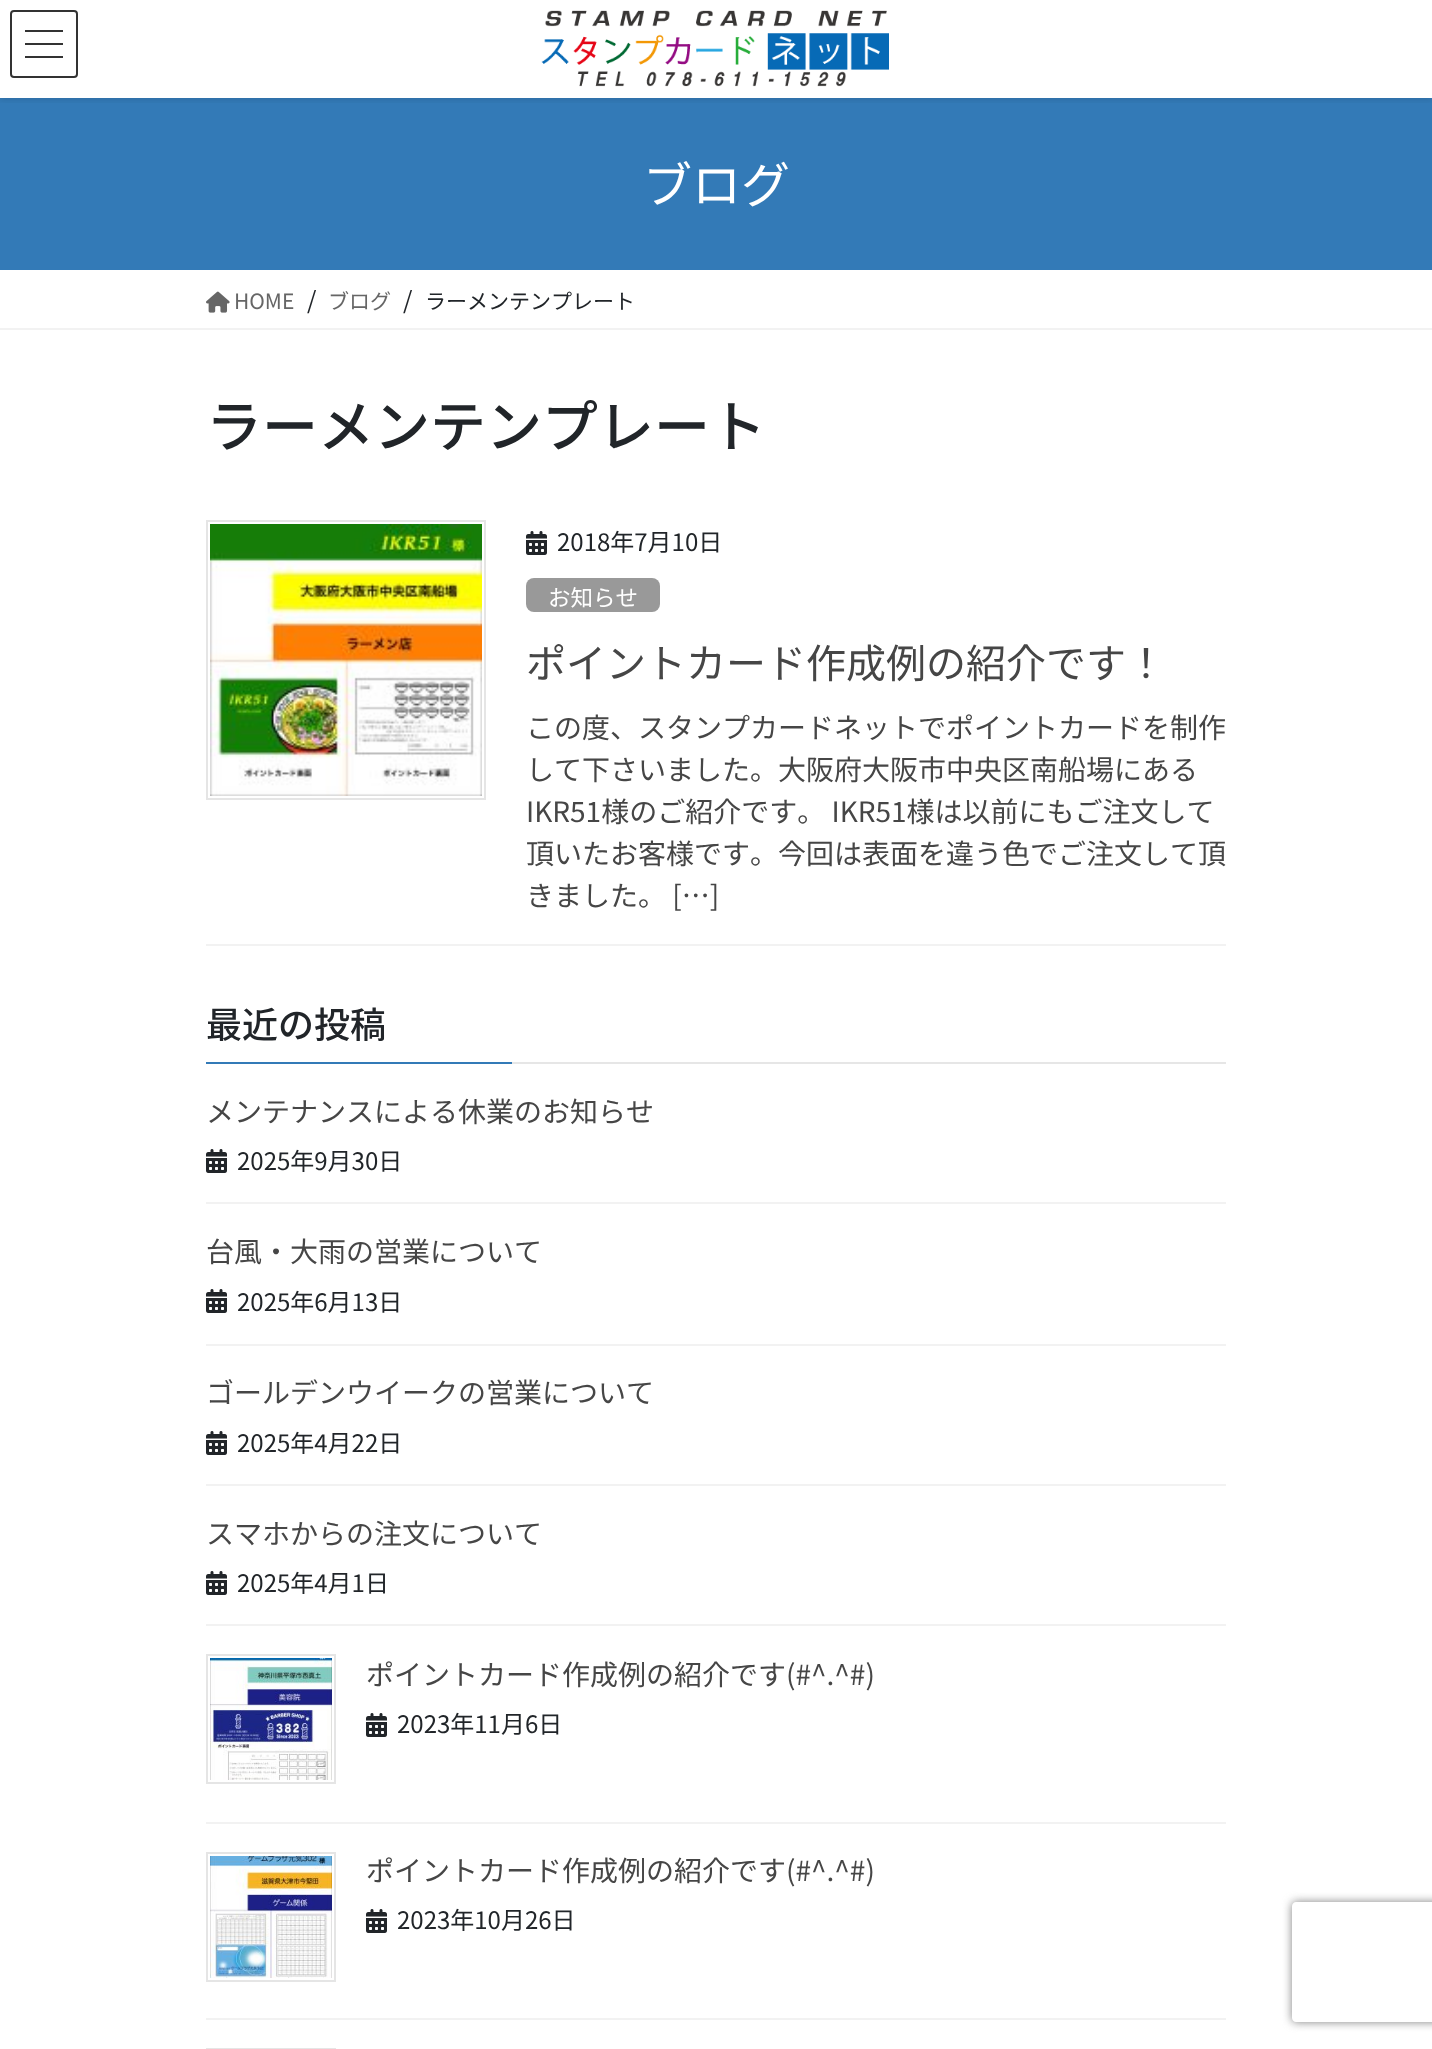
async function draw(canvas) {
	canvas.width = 1432;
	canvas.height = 2049;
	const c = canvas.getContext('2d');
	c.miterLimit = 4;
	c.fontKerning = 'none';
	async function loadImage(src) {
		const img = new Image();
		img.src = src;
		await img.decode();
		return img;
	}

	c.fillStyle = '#fff';
	c.fillRect(0, 0, 1432, 2049);
	c.fillStyle = '#337ab7';
	c.fillRect(0, 98, 1432, 172);
	c.save();
	c.beginPath();
	c.rect(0, 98, 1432, 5);
	c.clip();
	c.fillStyle = '#0000001a';
	c.filter = 'blur(3px)';
	c.beginPath();
	c.rect(0, 2, 1432, 98);
	c.fill();
	c.filter = 'none';
	c.restore();
	c.drawImage(await loadImage('img1.png'), 541, 10, 348, 77);
	for (const [x, y, w, h, color] of [
		[25, 30, 38, 2, '#333'],
		[25, 43, 38, 2, '#333'],
		[25, 56, 38, 2, '#333'],
	]) {
		c.fillStyle = color;
		c.fillRect(x, y, w, h);
	}
	c.beginPath();
	c.roundRect(11, 11, 66, 66, 3);
	c.strokeStyle = '#333';
	c.lineWidth = 2;
	c.stroke();
	c.font = '49px Noto Sans JP';
	c.fillStyle = '#fff';
	c.fillText('ブログ', 643, 203);
	c.fillStyle = '#f2f2f2';
	c.fillRect(0, 328, 1432, 2);
	c.drawImage(await loadImage('img2.png'), 206, 291, 24, 22);
	c.font = '21px Noto Sans JP';
	c.fillStyle = '#666';
	c.fillText('HOME', 234, 309);
	c.font = '24px Noto Sans JP';
	c.fillStyle = '#212529';
	c.fillText('/', 307, 309);
	c.font = '21px Noto Sans JP';
	c.fillStyle = '#666';
	c.fillText('ブログ', 328, 309);
	c.font = '24px Noto Sans JP';
	c.fillStyle = '#212529';
	c.fillText('/', 403, 309);
	c.font = '21px Noto Sans JP';
	c.fillText('ラーメンテンプレート', 425, 309);
	c.font = '500 56px Noto Sans JP';
	c.fillText('ラーメンテンプレート', 206, 447);
	c.fillStyle = '#f2f2f2';
	c.fillRect(206, 944, 1020, 2);
	c.strokeStyle = '#e5e5e5';
	c.strokeRect(207, 521, 278, 278);
	c.drawImage(await loadImage('img3.png'), 210, 524, 272, 272);
	c.drawImage(await loadImage('img4.png'), 526, 531, 21, 24);
	c.font = '24px Noto Sans JP';
	c.fillStyle = '#212529';
	c.fillText('2018年7月10日', 557, 551);
	c.fillStyle = '#999';
	c.beginPath();
	c.roundRect(526, 578, 134, 34, 8);
	c.fill();
	c.font = '22.5px Noto Sans JP';
	c.fillStyle = '#fff';
	c.fillText('お知らせ', 548, 606);
	c.font = '40px Noto Sans JP';
	c.fillStyle = '#464646';
	c.fillText('ポイントカード作成例の紹介です！', 526, 678);
	c.font = '28px Noto Sans JP';
	for (const [text, x, y] of [
		['この度、スタンプカードネットでポイントカードを制作', 526, 738],
		['して下さいました。大阪府大阪市中央区南船場にある', 526, 780],
		['IKR51様のご紹介です。 IKR51様は以前にもご注文して', 526, 822],
		['頂いたお客様です。今回は表面を違う色でご注文して頂', 526, 864],
		['きました。 […]', 526, 906],
	]) {
		c.fillText(text, x, y);
	}
	c.fillStyle = '#e6e6e6';
	c.fillRect(512, 1062, 714, 2);
	c.font = '500 36px Noto Sans JP';
	c.fillStyle = '#212529';
	c.fillText('最近の投稿', 206, 1038);
	c.fillStyle = '#337ab7';
	c.fillRect(206, 1062, 306, 2);
	c.fillStyle = '#f2f2f2';
	c.fillRect(206, 1202, 1020, 2);
	c.font = '28px Noto Sans JP';
	c.fillStyle = '#464646';
	c.fillText('メンテナンスによる休業のお知らせ', 206, 1122);
	c.drawImage(await loadImage('img4.png'), 206, 1149, 21, 24);
	c.font = '24px Noto Sans JP';
	c.fillStyle = '#212529';
	c.fillText('2025年9月30日', 237, 1170);
	c.fillStyle = '#f2f2f2';
	c.fillRect(206, 1344, 1020, 2);
	c.font = '28px Noto Sans JP';
	c.fillStyle = '#464646';
	c.fillText('台風・大雨の営業について', 206, 1262);
	c.drawImage(await loadImage('img4.png'), 206, 1289, 21, 24);
	c.font = '24px Noto Sans JP';
	c.fillStyle = '#212529';
	c.fillText('2025年6月13日', 237, 1311);
	c.fillStyle = '#f2f2f2';
	c.fillRect(206, 1484, 1020, 2);
	c.font = '28px Noto Sans JP';
	c.fillStyle = '#464646';
	c.fillText('ゴールデンウイークの営業について', 206, 1403);
	c.drawImage(await loadImage('img4.png'), 206, 1431, 21, 24);
	c.font = '24px Noto Sans JP';
	c.fillStyle = '#212529';
	c.fillText('2025年4月22日', 237, 1452);
	c.fillStyle = '#f2f2f2';
	c.fillRect(206, 1624, 1020, 2);
	c.font = '28px Noto Sans JP';
	c.fillStyle = '#464646';
	c.fillText('スマホからの注文について', 206, 1544);
	c.drawImage(await loadImage('img4.png'), 206, 1571, 21, 24);
	c.font = '24px Noto Sans JP';
	c.fillStyle = '#212529';
	c.fillText('2025年4月1日', 237, 1592);
	c.fillStyle = '#f2f2f2';
	c.fillRect(206, 1822, 1020, 2);
	c.strokeRect(207, 1655, 128, 128);
	c.drawImage(await loadImage('img5.png'), 210, 1658, 122, 122);
	c.font = '28px Noto Sans JP';
	c.fillStyle = '#464646';
	c.fillText('ポイントカード作成例の紹介です(#^.^#)', 366, 1685);
	c.drawImage(await loadImage('img4.png'), 366, 1713, 21, 24);
	c.font = '24px Noto Sans JP';
	c.fillStyle = '#212529';
	c.fillText('2023年11月6日', 397, 1733);
	c.fillStyle = '#f2f2f2';
	c.fillRect(206, 2018, 1020, 2);
	c.strokeRect(207, 1853, 128, 128);
	c.drawImage(await loadImage('img6.png'), 210, 1856, 122, 122);
	c.font = '28px Noto Sans JP';
	c.fillStyle = '#464646';
	c.fillText('ポイントカード作成例の紹介です(#^.^#)', 366, 1881);
	c.drawImage(await loadImage('img4.png'), 366, 1909, 21, 24);
	c.font = '24px Noto Sans JP';
	c.fillStyle = '#212529';
	c.fillText('2023年10月26日', 397, 1929);
	c.strokeRect(207, 2049, 128, 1);
	c.save();
	c.beginPath();
	c.moveTo(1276, 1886);
	c.lineTo(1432, 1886);
	c.lineTo(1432, 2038);
	c.lineTo(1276, 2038);
	c.closePath();
	c.moveTo(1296, 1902);
	c.lineTo(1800, 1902);
	c.bezierCurveTo(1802, 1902, 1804, 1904, 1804, 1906);
	c.lineTo(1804, 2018);
	c.bezierCurveTo(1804, 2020, 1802, 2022, 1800, 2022);
	c.lineTo(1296, 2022);
	c.bezierCurveTo(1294, 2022, 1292, 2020, 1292, 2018);
	c.lineTo(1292, 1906);
	c.bezierCurveTo(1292, 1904, 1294, 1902, 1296, 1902);
	c.closePath();
	c.clip('evenodd');
	c.fillStyle = '#808080';
	c.filter = 'blur(5px)';
	c.beginPath();
	c.roundRect(1292, 1902, 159, 120, 4);
	c.fill();
	c.filter = 'none';
	c.restore();
}

draw(document.querySelector('canvas'));
